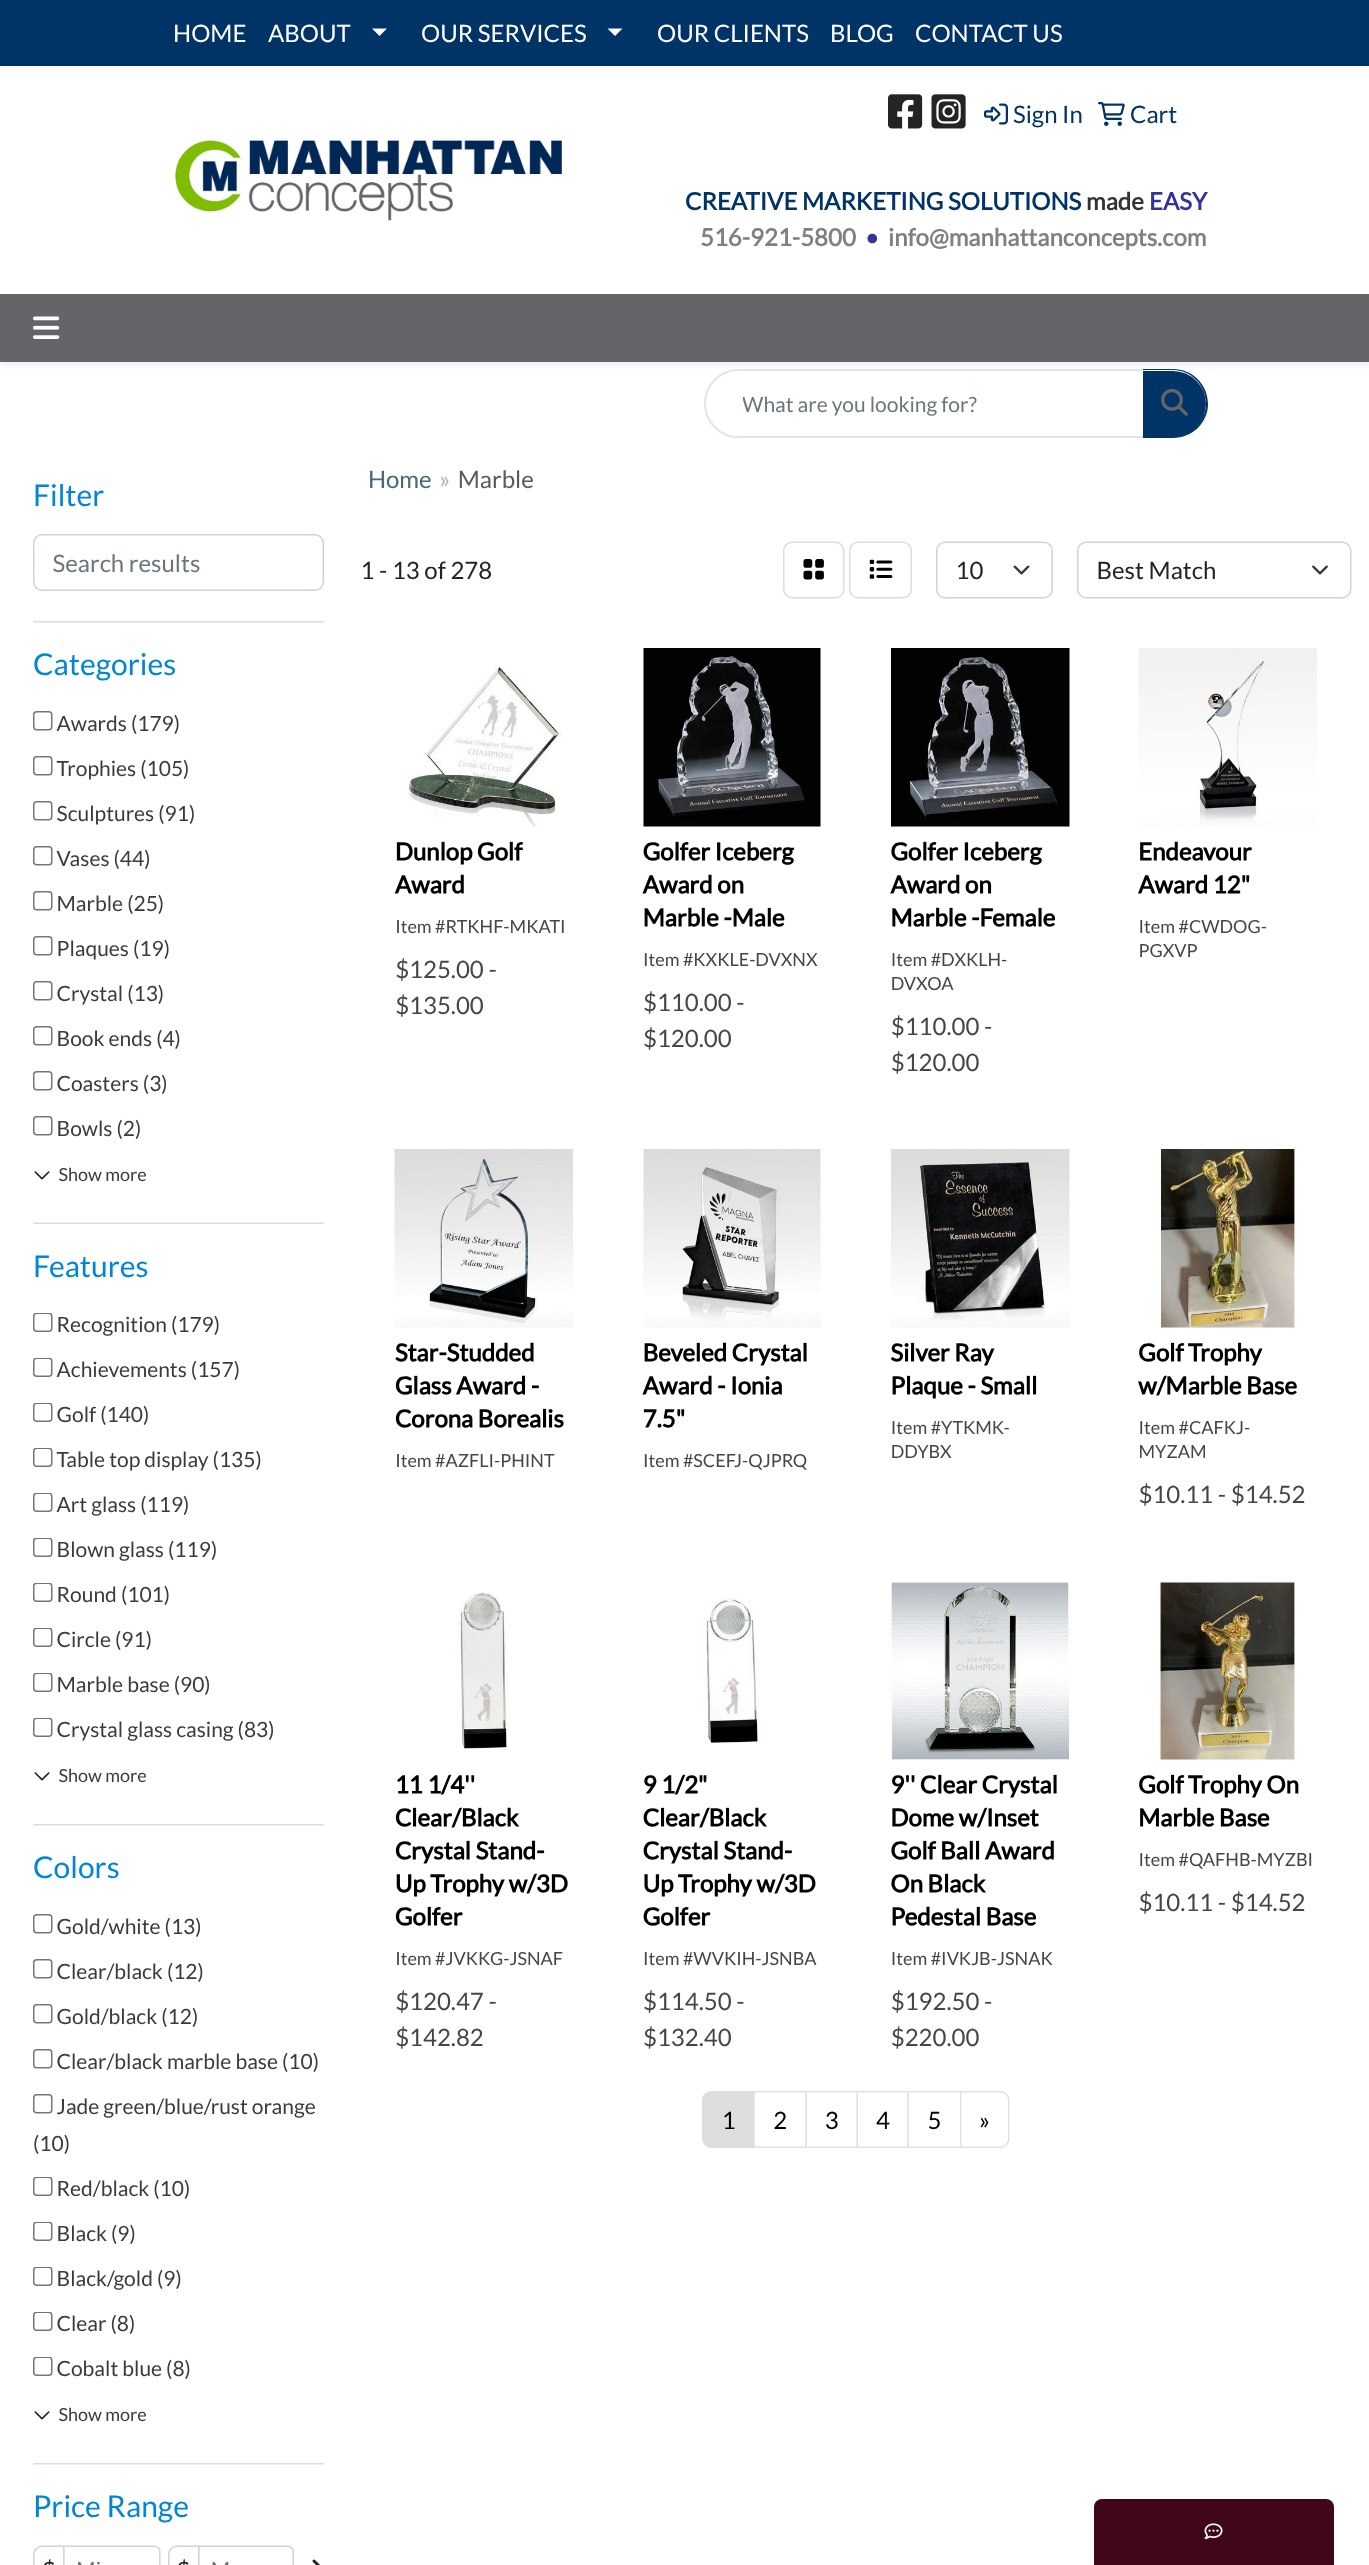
async function draw(canvas) {
	canvas.width = 1369;
	canvas.height = 2565;
	const c = canvas.getContext('2d');
	c.miterLimit = 4;
	c.fontKerning = 'normal';
	async function loadImage(src) {
		const img = new Image();
		img.src = src;
		await img.decode();
		return img;
	}

	c.fillStyle = '#fff';
	c.fillRect(0, 0, 1369, 2565);
	c.fillStyle = '#036';
	c.fillRect(0, 0, 1369, 66);
	c.font = '24px Lato';
	c.fillStyle = '#fff';
	c.fillText('HOME', 173, 42);
	c.fillText('ABOUT', 268, 42);
	c.beginPath();
	c.moveTo(372, 28.5);
	c.lineTo(387, 28.5);
	c.lineTo(379.5, 36);
	c.closePath();
	c.fill();
	c.fillText('OUR SERVICES', 421, 42);
	c.beginPath();
	c.moveTo(607.5, 28.5);
	c.lineTo(622.5, 28.5);
	c.lineTo(615, 36);
	c.closePath();
	c.fill();
	for (const [text, x, y] of [
		['OUR CLIENTS', 657, 42],
		['BLOG', 830, 42],
		['CONTACT US', 915, 42],
	]) {
		c.fillText(text, x, y);
	}
	c.drawImage(await loadImage('img1.png'), 175, 140, 387, 81);
	c.drawImage(await loadImage('img2.png'), 888, 94, 35, 35);
	c.drawImage(await loadImage('img3.png'), 931, 94, 35, 35);
	c.drawImage(await loadImage('img4.png'), 984, 103, 24, 22);
	c.fillStyle = '#036';
	c.fillText('Sign In', 1013, 123);
	c.drawImage(await loadImage('img5.png'), 1098, 102, 27, 24);
	c.fillText('Cart', 1130, 123);
	c.font = 'bold 24px Lato';
	c.fillText('CREATIVE MARKETING SOLUTIONS', 685, 210);
	c.fillStyle = '#333';
	c.fillText('made', 1086, 210);
	c.fillStyle = '#339';
	c.fillText('EASY', 1149, 210);
	c.fillStyle = '#808080';
	c.fillText('516-921-5800', 700, 246);
	c.fillStyle = '#339';
	c.fillText('•', 865, 246);
	c.fillStyle = '#808080';
	c.fillText('info@manhattanconcepts.com', 888, 246);
	c.fillStyle = '#00000012';
	c.filter = 'blur(3px)';
	c.beginPath();
	c.rect(0, 297, 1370, 68);
	c.fill();
	c.filter = 'none';
	c.fillStyle = '#636569';
	c.fillRect(0, 294, 1369, 68);
	c.drawImage(await loadImage('img6.png'), 33, 316, 27, 23);
	c.beginPath();
	c.roundRect(705, 370, 439, 67, [33.5, 0, 0, 33.5]);
	c.strokeStyle = '#e4e4e4';
	c.lineWidth = 2;
	c.stroke();
	c.save();
	c.beginPath();
	c.rect(743, 392, 382, 25);
	c.clip();
	c.font = '21px Lato';
	c.fillStyle = '#6c757d';
	c.fillText('What are you looking for?', 742, 412);
	c.restore();
	c.fillStyle = '#036';
	c.beginPath();
	c.roundRect(1143, 371, 63, 66, [0, 33, 33, 0]);
	c.fill();
	c.beginPath();
	c.moveTo(1143, 369);
	c.lineTo(1173, 369);
	c.bezierCurveTo(1192, 369, 1208, 384, 1208, 404);
	c.bezierCurveTo(1208, 423, 1192, 438, 1173, 438);
	c.lineTo(1143, 438);
	c.closePath();
	c.moveTo(1143, 370);
	c.lineTo(1173, 370);
	c.bezierCurveTo(1191, 370, 1206, 385, 1206, 404);
	c.bezierCurveTo(1206, 422, 1191, 436, 1173, 436);
	c.lineTo(1143, 436);
	c.closePath();
	c.fill('evenodd');
	c.drawImage(await loadImage('img7.png'), 1161, 388, 27, 28);
	c.drawImage(await loadImage('img8.png'), 33, 470, 1319, 2095);
	c.fillStyle = '#400718';
	c.beginPath();
	c.roundRect(1094, 2499, 240, 66, [8, 8, 0, 0]);
	c.fill();
	c.drawImage(await loadImage('img9.png'), 1204, 2523, 19, 17);
}

draw(document.querySelector('canvas'));
